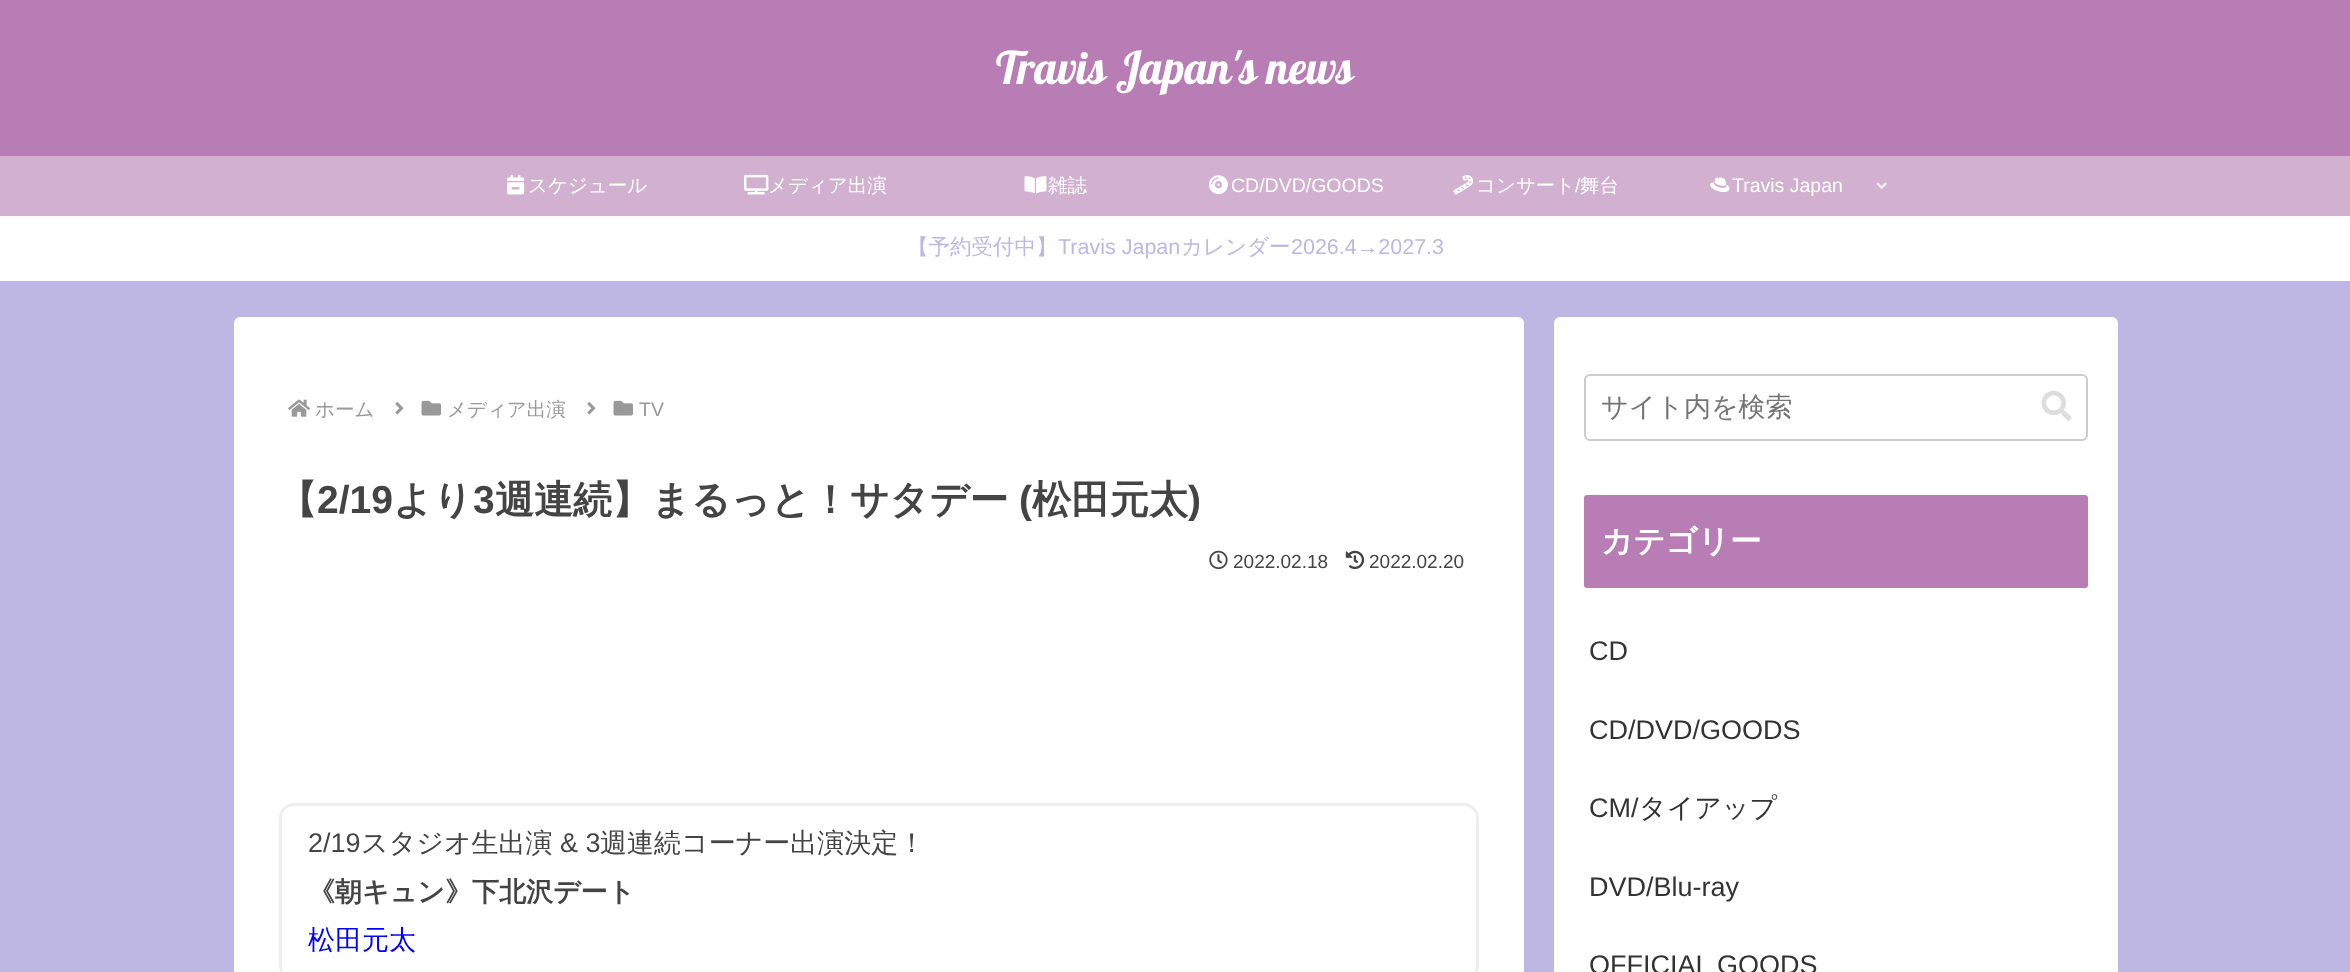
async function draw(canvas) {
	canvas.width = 2350;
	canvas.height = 972;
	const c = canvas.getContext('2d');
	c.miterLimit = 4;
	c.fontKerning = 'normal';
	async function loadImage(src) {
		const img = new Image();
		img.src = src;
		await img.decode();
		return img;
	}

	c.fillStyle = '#beb7e3';
	c.fillRect(0, 0, 2350, 972);
	c.fillStyle = '#b87db4';
	c.fillRect(0, 0, 2350, 156);
	c.font = '45px Pattaya';
	c.fillStyle = '#fff';
	c.fillText('Travis Japan\'s news', 996, 84);
	c.fillStyle = '#d2b0d0';
	c.fillRect(0, 156, 2350, 60);
	c.drawImage(await loadImage('img1.png'), 507, 174, 18, 21);
	c.font = '500 19.5px WenQuanYi Zen Hei';
	c.fillStyle = '#fff';
	c.fillText('スケジュール', 528, 192);
	c.drawImage(await loadImage('img2.png'), 744, 174, 25, 21);
	c.fillText('メディア出演', 768, 192);
	c.drawImage(await loadImage('img3.png'), 1024, 176, 23, 18);
	c.fillText('雑誌', 1048, 192);
	c.drawImage(await loadImage('img4.png'), 1209, 175, 19, 20);
	c.font = '19.5px Liberation Sans';
	c.fillText('CD/DVD/GOODS', 1231, 192);
	c.drawImage(await loadImage('img5.png'), 1453, 175, 20, 20);
	c.font = '500 19.5px WenQuanYi Zen Hei';
	c.fillText('コンサート', 1476, 192);
	c.font = '19.5px Liberation Sans';
	c.fillText('/', 1575, 192);
	c.font = '500 19.5px WenQuanYi Zen Hei';
	c.fillText('舞台', 1580, 192);
	c.drawImage(await loadImage('img6.png'), 1710, 177, 20, 16);
	c.font = '19.5px Liberation Sans';
	c.fillText('Travis Japan', 1732, 192);
	c.drawImage(await loadImage('img7.png'), 1876, 182, 11, 7);
	c.fillRect(0, 216, 2350, 65);
	c.font = '500 21.5px WenQuanYi Zen Hei';
	c.fillStyle = '#beb7e3';
	c.fillText('【予約受付中】', 907, 254);
	c.font = '21.5px Liberation Sans';
	c.fillText('Travis Japan', 1058, 254);
	c.font = '500 21.5px WenQuanYi Zen Hei';
	c.fillText('カレンダー', 1181, 254);
	c.font = '21.5px Liberation Sans';
	c.fillText('2026.4→2027.3', 1291, 254);
	c.fillStyle = '#fff';
	c.beginPath();
	c.roundRect(234, 317, 1290, 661, 6);
	c.fill();
	c.drawImage(await loadImage('img8.png'), 288, 399, 22, 18);
	c.font = '500 19.5px WenQuanYi Zen Hei';
	c.fillStyle = '#999';
	c.fillText('ホーム', 315, 416);
	c.drawImage(await loadImage('img9.png'), 395, 402, 9, 13);
	c.drawImage(await loadImage('img10.png'), 421, 400, 20, 16);
	c.fillText('メディア出演', 447, 416);
	c.drawImage(await loadImage('img9.png'), 587, 402, 9, 13);
	c.drawImage(await loadImage('img10.png'), 613, 400, 20, 16);
	c.font = '19.5px Liberation Sans';
	c.fillText('TV', 639, 416);
	c.font = 'bold 39px WenQuanYi Zen Hei';
	c.fillStyle = '#444';
	c.fillText('【', 278, 513);
	c.font = 'bold 39px Liberation Sans';
	c.fillText('2/19', 317, 513);
	c.font = 'bold 39px WenQuanYi Zen Hei';
	c.fillText('より', 393, 513);
	c.font = 'bold 39px Liberation Sans';
	c.fillText('3', 473, 513);
	c.font = 'bold 39px WenQuanYi Zen Hei';
	c.fillText('週連続】まるっと！サタデー', 495, 513);
	c.font = 'bold 39px Liberation Sans';
	c.fillText('(', 1019, 513);
	c.font = 'bold 39px WenQuanYi Zen Hei';
	c.fillText('松田元太', 1032, 513);
	c.font = 'bold 39px Liberation Sans';
	c.fillText(')', 1188, 513);
	c.drawImage(await loadImage('img11.png'), 1209, 550, 19, 20);
	c.font = '19px Liberation Sans';
	c.fillText('2022.02.18', 1233, 568);
	c.drawImage(await loadImage('img12.png'), 1345, 550, 20, 20);
	c.fillText('2022.02.20', 1369, 568);
	c.beginPath();
	c.roundRect(280.5, 804.5, 1197, 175, 13.5);
	c.strokeStyle = '#eee';
	c.lineWidth = 3;
	c.stroke();
	c.font = '27px Liberation Sans';
	c.fillText('2/19', 308, 852);
	c.font = '500 27px WenQuanYi Zen Hei';
	c.fillText('スタジオ生出演', 361, 852);
	c.font = '27px Liberation Sans';
	c.fillText('& 3', 560, 852);
	c.font = '500 27px WenQuanYi Zen Hei';
	c.fillText('週連続コーナー出演決定！', 600, 852);
	c.font = 'bold 27px WenQuanYi Zen Hei';
	c.fillText('《朝キュン》下北沢デート', 308, 901);
	c.font = '500 27px WenQuanYi Zen Hei';
	c.fillStyle = '#00f';
	c.fillText('松田元太', 308, 949);
	c.fillStyle = '#fff';
	c.beginPath();
	c.roundRect(1554, 317, 564, 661, 6);
	c.fill();
	c.beginPath();
	c.roundRect(1585, 375, 502, 65, 5);
	c.strokeStyle = '#ccc';
	c.lineWidth = 2;
	c.stroke();
	c.fillStyle = '#757575';
	c.fillText('サイト内を検索', 1601, 416);
	c.drawImage(await loadImage('img13.png'), 2041, 390, 31, 31);
	c.fillStyle = '#b87db4';
	c.beginPath();
	c.roundRect(1584, 495, 504, 93, 3);
	c.fill();
	c.font = 'bold 31.5px WenQuanYi Zen Hei';
	c.fillStyle = '#fff';
	c.fillText('カテゴリー', 1601, 552);
	c.font = '27px Liberation Sans';
	c.fillStyle = '#333';
	for (const [text, x, y] of [
		['CD', 1589, 660],
		['CD/DVD/GOODS', 1589, 739],
		['CM/', 1589, 817],
	]) {
		c.fillText(text, x, y);
	}
	c.font = '500 27px WenQuanYi Zen Hei';
	c.fillText('タイアップ', 1639, 817);
	c.font = '27px Liberation Sans';
	c.fillText('DVD/Blu-ray', 1589, 896);
	c.fillText('OFFICIAL GOODS', 1589, 974);
}

draw(document.querySelector('canvas'));
